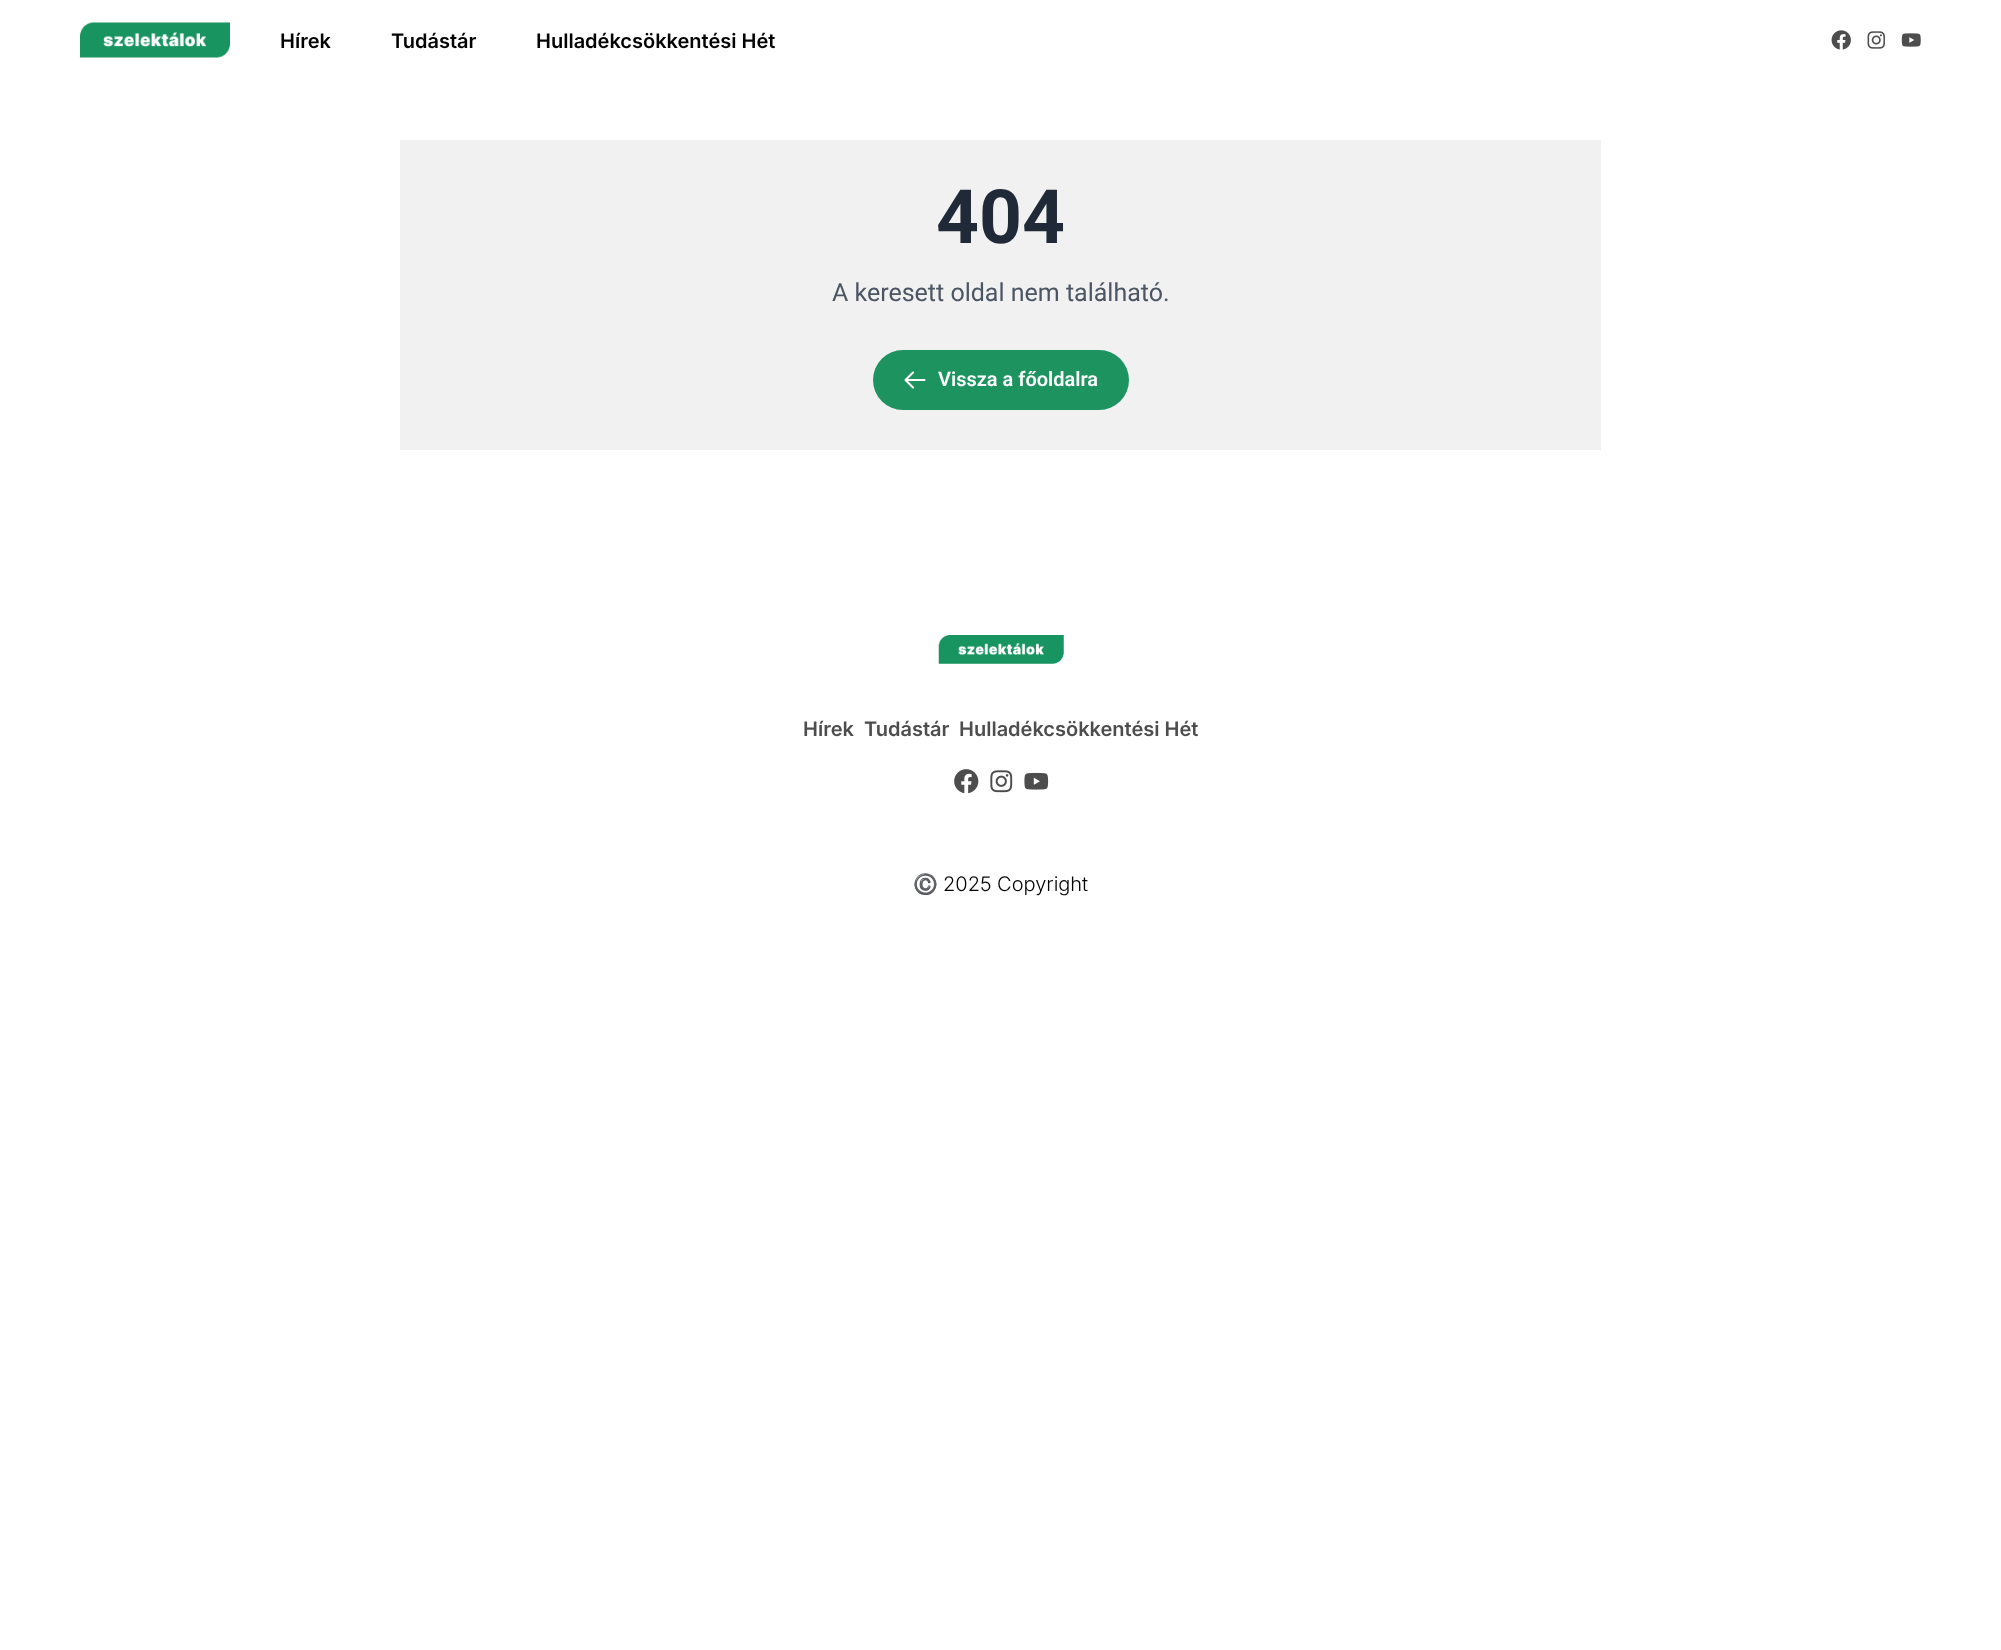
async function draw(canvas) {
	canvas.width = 2001;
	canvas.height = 1650;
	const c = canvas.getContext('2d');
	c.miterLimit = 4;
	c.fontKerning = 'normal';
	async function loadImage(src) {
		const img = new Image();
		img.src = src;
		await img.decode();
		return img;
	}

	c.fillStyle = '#fff';
	c.fillRect(0, 0, 2001, 1650);
	c.drawImage(await loadImage('img1.png'), 80, 22, 150, 36);
	c.font = '600 20px Inter';
	c.fillStyle = '#020202';
	for (const [text, x, y] of [
		['Hírek', 280, 48],
		['Tudástár', 391, 48],
		['Hulladékcsökkentési Hét', 536, 48],
	]) {
		c.fillText(text, x, y);
	}
	c.drawImage(await loadImage('img2.png'), 1831, 30, 20, 20);
	c.drawImage(await loadImage('img3.png'), 1867, 31, 18, 18);
	c.drawImage(await loadImage('img4.png'), 1901, 33, 20, 14);
	c.fillStyle = '#f1f1f1';
	c.fillRect(400, 140, 1201, 310);
	c.font = 'bold 75px Roboto';
	c.fillStyle = '#1f2937';
	c.fillText('404', 936, 243);
	c.font = '25px Roboto';
	c.fillStyle = '#4b5563';
	c.fillText('A keresett oldal nem található.', 832, 301);
	c.fillStyle = '#1d9360';
	c.beginPath();
	c.roundRect(873, 350, 256, 60, 30);
	c.fill();
	c.beginPath();
	c.moveTo(913, 387.5);
	c.lineTo(905.5, 380);
	c.moveTo(905.5, 380);
	c.lineTo(913, 372.5);
	c.moveTo(905.5, 380);
	c.lineTo(924.5, 380);
	c.strokeStyle = '#fff';
	c.lineWidth = 2.1;
	c.lineCap = 'round';
	c.lineJoin = 'round';
	c.stroke();
	c.font = '600 20px Roboto';
	c.fillStyle = '#fff';
	c.fillText('Vissza a főoldalra', 938, 386);
	c.drawImage(await loadImage('img5.png'), 938, 635, 126, 29);
	c.font = '600 20px Inter';
	c.fillStyle = '#4d4d4d';
	for (const [text, x, y] of [
		['Hírek', 803, 736],
		['Tudástár', 864, 736],
		['Hulladékcsökkentési Hét', 959, 736],
	]) {
		c.fillText(text, x, y);
	}
	c.drawImage(await loadImage('img6.png'), 954, 769, 25, 25);
	c.drawImage(await loadImage('img7.png'), 990, 770, 23, 23);
	c.drawImage(await loadImage('img8.png'), 1024, 772, 25, 18);
	c.font = '20px Noto Color Emoji';
	c.fillStyle = '#020202';
	c.fillText('©️', 913, 891);
	c.font = '300 20px Inter';
	c.fillText('2025 Copyright', 943, 891);
}

draw(document.querySelector('canvas'));
